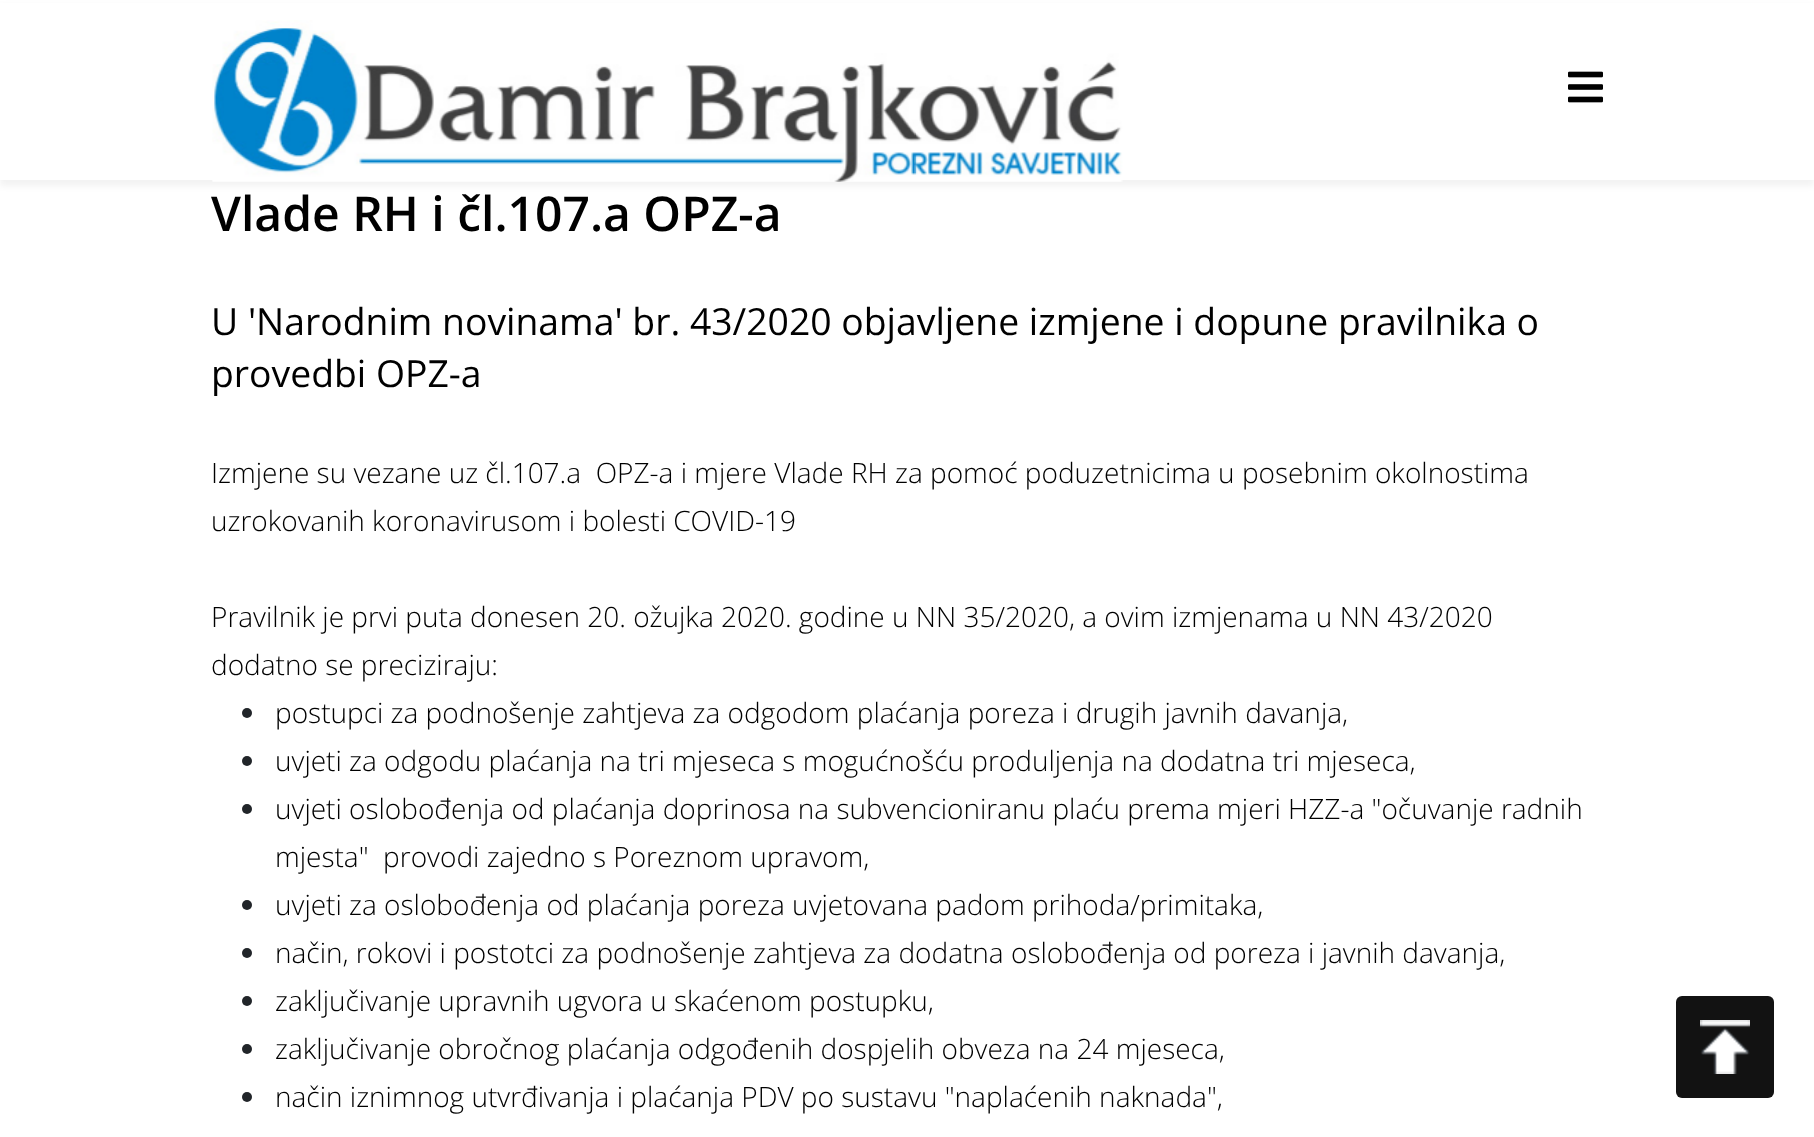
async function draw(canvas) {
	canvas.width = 1814;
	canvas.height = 1137;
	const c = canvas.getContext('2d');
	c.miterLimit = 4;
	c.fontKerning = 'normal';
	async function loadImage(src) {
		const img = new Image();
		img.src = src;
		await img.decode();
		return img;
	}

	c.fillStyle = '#fff';
	c.fillRect(0, 0, 1814, 1137);
	c.fillStyle = '#0000000d';
	c.filter = 'blur(3px)';
	c.beginPath();
	c.rect(0, 6, 1814, 180);
	c.fill();
	c.filter = 'none';
	c.fillStyle = '#fff';
	c.fillRect(0, 3, 1814, 177);
	c.drawImage(await loadImage('img1.png'), 212, 20, 911, 162);
	c.drawImage(await loadImage('img2.png'), 1568, 71, 35, 32);
	c.font = '600 48px Open Sans';
	c.fillStyle = '#000';
	c.fillText('Vlade RH i čl.107.a OPZ-a', 211, 231);
	c.font = '37.35px Open Sans';
	c.fillText('U \'Narodnim novinama\' br. 43/2020 objavljene izmjene i dopune pravilnika o', 211, 335);
	c.fillText('provedbi OPZ-a', 211, 387);
	c.font = '300 28px Open Sans';
	for (const [text, x, y] of [
		['Izmjene su vezane uz čl.107.a  OPZ-a i mjere Vlade RH za pomoć poduzetnicima u posebnim okolnostima', 211, 483],
		['uzrokovanih koronavirusom i bolesti COVID-19', 211, 531],
		['Pravilnik je prvi puta donesen 20. ožujka 2020. godine u NN 35/2020, a ovim izmjenama u NN 43/2020', 211, 627],
		['dodatno se preciziraju:', 211, 675],
	]) {
		c.fillText(text, x, y);
	}
	c.fillStyle = '#212529';
	c.beginPath();
	c.arc(247, 713, 5, 0, 2 * Math.PI);
	c.fill();
	c.fillStyle = '#000';
	c.fillText('postupci za podnošenje zahtjeva za odgodom plaćanja poreza i drugih javnih davanja,', 275, 723);
	c.fillStyle = '#212529';
	c.beginPath();
	c.arc(247, 761, 5, 0, 2 * Math.PI);
	c.fill();
	c.fillStyle = '#000';
	c.fillText('uvjeti za odgodu plaćanja na tri mjeseca s mogućnošću produljenja na dodatna tri mjeseca,', 275, 771);
	c.fillStyle = '#212529';
	c.beginPath();
	c.arc(247, 809, 5, 0, 2 * Math.PI);
	c.fill();
	c.fillStyle = '#000';
	c.fillText('uvjeti oslobođenja od plaćanja doprinosa na subvencioniranu plaću prema mjeri HZZ-a "očuvanje radnih', 275, 819);
	c.fillText('mjesta"  provodi zajedno s Poreznom upravom,', 275, 867);
	c.fillStyle = '#212529';
	c.beginPath();
	c.arc(247, 905, 5, 0, 2 * Math.PI);
	c.fill();
	c.fillStyle = '#000';
	c.fillText('uvjeti za oslobođenja od plaćanja poreza uvjetovana padom prihoda/primitaka,', 275, 915);
	c.fillStyle = '#212529';
	c.beginPath();
	c.arc(247, 953, 5, 0, 2 * Math.PI);
	c.fill();
	c.fillStyle = '#000';
	c.fillText('način, rokovi i postotci za podnošenje zahtjeva za dodatna oslobođenja od poreza i javnih davanja,', 275, 963);
	c.fillStyle = '#212529';
	c.beginPath();
	c.arc(247, 1001, 5, 0, 2 * Math.PI);
	c.fill();
	c.fillStyle = '#000';
	c.fillText('zaključivanje upravnih ugvora u skaćenom postupku,', 275, 1011);
	c.fillStyle = '#212529';
	c.beginPath();
	c.arc(247, 1049, 5, 0, 2 * Math.PI);
	c.fill();
	c.fillStyle = '#000';
	c.fillText('zaključivanje obročnog plaćanja odgođenih dospjelih obveza na 24 mjeseca,', 275, 1059);
	c.fillStyle = '#212529';
	c.beginPath();
	c.arc(247, 1097, 5, 0, 2 * Math.PI);
	c.fill();
	c.fillStyle = '#000';
	c.fillText('način iznimnog utvrđivanja i plaćanja PDV po sustavu "naplaćenih naknada",', 275, 1107);
	c.fillStyle = '#121212';
	c.beginPath();
	c.roundRect(1676, 996, 98, 102, 6);
	c.fill();
	c.drawImage(await loadImage('img3.png'), 1700, 1020, 50, 54);
}

draw(document.querySelector('canvas'));
